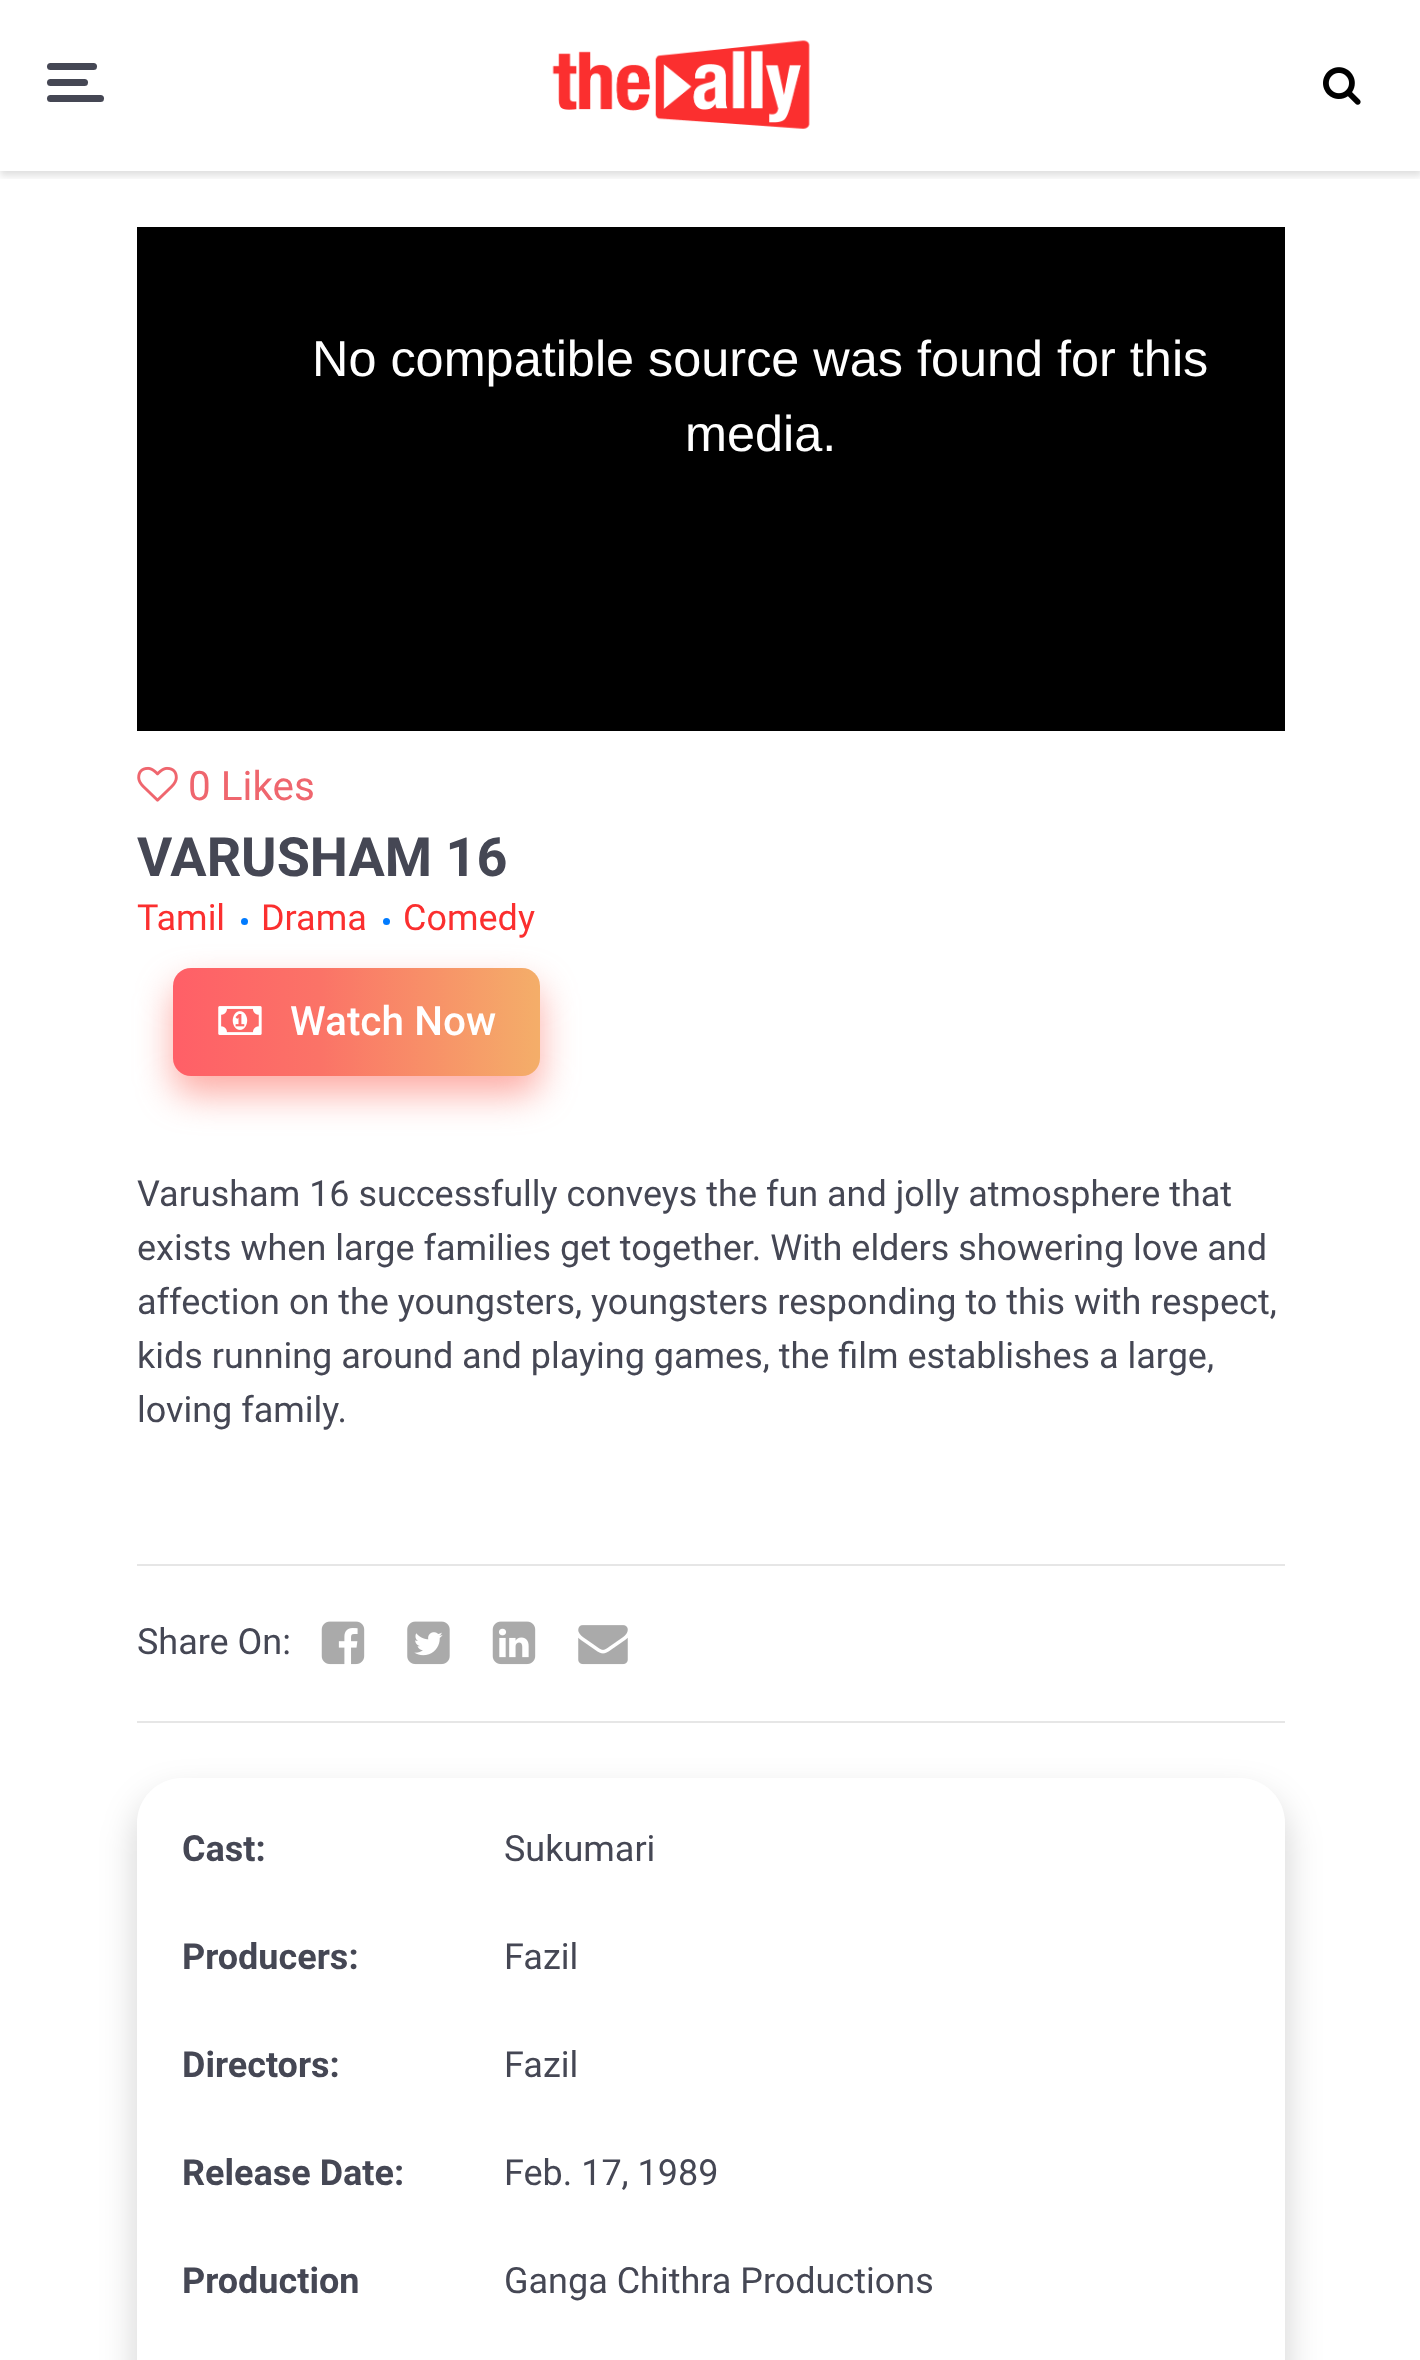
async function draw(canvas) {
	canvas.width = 1420;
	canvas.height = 2360;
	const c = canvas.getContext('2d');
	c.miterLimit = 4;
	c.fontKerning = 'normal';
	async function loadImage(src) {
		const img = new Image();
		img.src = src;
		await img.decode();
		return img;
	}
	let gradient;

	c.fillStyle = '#fff';
	c.fillRect(0, 0, 1420, 2360);
	c.save();
	c.beginPath();
	c.rect(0, 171, 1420, 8);
	c.clip();
	c.fillStyle = '#0000001f';
	c.filter = 'blur(3.5px)';
	c.beginPath();
	c.rect(0, 5, 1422, 171);
	c.fill();
	c.filter = 'none';
	c.restore();
	c.fillStyle = '#454754';
	c.beginPath();
	c.roundRect(47, 63, 50, 7, 3.5);
	c.fill();
	c.beginPath();
	c.roundRect(47, 79, 41, 7, 3.5);
	c.fill();
	c.beginPath();
	c.roundRect(47, 95, 57, 7, 3.5);
	c.fill();
	c.drawImage(await loadImage('img1.png'), 552, 40, 258, 89);
	c.drawImage(await loadImage('img2.png'), 1323, 67, 38, 38);
	c.fillStyle = '#000';
	c.fillRect(137, 227, 1148, 504);
	c.font = '50.4px Liberation Sans';
	c.fillStyle = '#fff';
	c.fillText('No compatible source was found for this', 312, 376);
	c.fillText('media.', 685, 451);
	c.drawImage(await loadImage('img3.png'), 137, 766, 41, 36);
	c.font = '40.5px Roboto';
	c.fillStyle = '#ef666e';
	c.fillText('0 Likes', 188, 800);
	c.font = 'bold 54px Roboto';
	c.fillStyle = '#454754';
	c.fillText('VARUSHAM 16', 137, 876);
	c.font = '36px Roboto';
	c.fillStyle = '#fb2f2f';
	c.fillText('Tamil', 137, 930);
	c.fillStyle = '#007bff';
	c.beginPath();
	c.arc(244.5, 921.5, 3.5, 0, 2 * Math.PI);
	c.fill();
	c.fillStyle = '#fb2f2f';
	c.fillText('Drama', 261, 930);
	c.fillStyle = '#007bff';
	c.beginPath();
	c.arc(386.5, 921.5, 3.5, 0, 2 * Math.PI);
	c.fill();
	c.fillStyle = '#fb2f2f';
	c.fillText('Comedy', 403, 930);
	c.fillStyle = '#fb736799';
	c.filter = 'blur(18px)';
	c.beginPath();
	c.roundRect(173, 986, 367, 108, 18);
	c.fill();
	c.filter = 'none';
	gradient = c.createLinearGradient(173, 1022, 540, 1022);
	gradient.addColorStop(0, '#ff5f67');
	gradient.addColorStop(0.4, '#fb7367');
	gradient.addColorStop(1, '#f4ae69');
	c.fillStyle = gradient;
	c.beginPath();
	c.roundRect(173, 968, 367, 108, 18);
	c.fill();
	c.drawImage(await loadImage('img4.png'), 218, 1006, 44, 29);
	c.font = '500 40.5px Roboto';
	c.fillStyle = '#fff';
	c.fillText('Watch Now', 290, 1035);
	c.font = '36px Roboto';
	c.fillStyle = '#454754';
	for (const [text, x, y] of [
		['Varusham 16 successfully conveys the fun and jolly atmosphere that', 137, 1206],
		['exists when large families get together. With elders showering love and', 137, 1260],
		['affection on the youngsters, youngsters responding to this with respect,', 137, 1314],
		['kids running around and playing games, the film establishes a large,', 137, 1368],
		['loving family.', 137, 1422],
	]) {
		c.fillText(text, x, y);
	}
	c.fillStyle = '#e6e6e6';
	c.fillRect(137, 1564, 1148, 2);
	c.fillStyle = '#454754';
	c.fillText('Share On:', 137, 1654);
	c.drawImage(await loadImage('img5.png'), 321, 1621, 44, 44);
	c.drawImage(await loadImage('img6.png'), 407, 1621, 43, 44);
	c.drawImage(await loadImage('img7.png'), 492, 1621, 44, 44);
	c.drawImage(await loadImage('img8.png'), 578, 1625, 50, 40);
	c.fillStyle = '#e6e6e6';
	c.fillRect(137, 1721, 1148, 2);
	c.fillStyle = '#0000002e';
	c.filter = 'blur(18px)';
	c.beginPath();
	c.roundRect(137, 1796, 1148, 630, 45);
	c.fill();
	c.filter = 'none';
	c.fillStyle = '#fff';
	c.beginPath();
	c.roundRect(137, 1778, 1148, 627, 45);
	c.fill();
	c.font = 'bold 36px Roboto';
	c.fillStyle = '#454754';
	c.fillText('Cast:', 182, 1861);
	c.font = '36px Roboto';
	c.fillText('Sukumari', 504, 1861);
	c.font = 'bold 36px Roboto';
	c.fillText('Producers:', 182, 1969);
	c.font = '36px Roboto';
	c.fillText('Fazil', 504, 1969);
	c.font = 'bold 36px Roboto';
	c.fillText('Directors:', 182, 2077);
	c.font = '36px Roboto';
	c.fillText('Fazil', 504, 2077);
	c.font = 'bold 36px Roboto';
	c.fillText('Release Date:', 182, 2185);
	c.font = '36px Roboto';
	c.fillText('Feb. 17, 1989', 504, 2185);
	c.font = 'bold 36px Roboto';
	c.fillText('Production', 182, 2293);
	c.font = '36px Roboto';
	c.fillText('Ganga Chithra Productions', 504, 2293);
}

draw(document.querySelector('canvas'));
